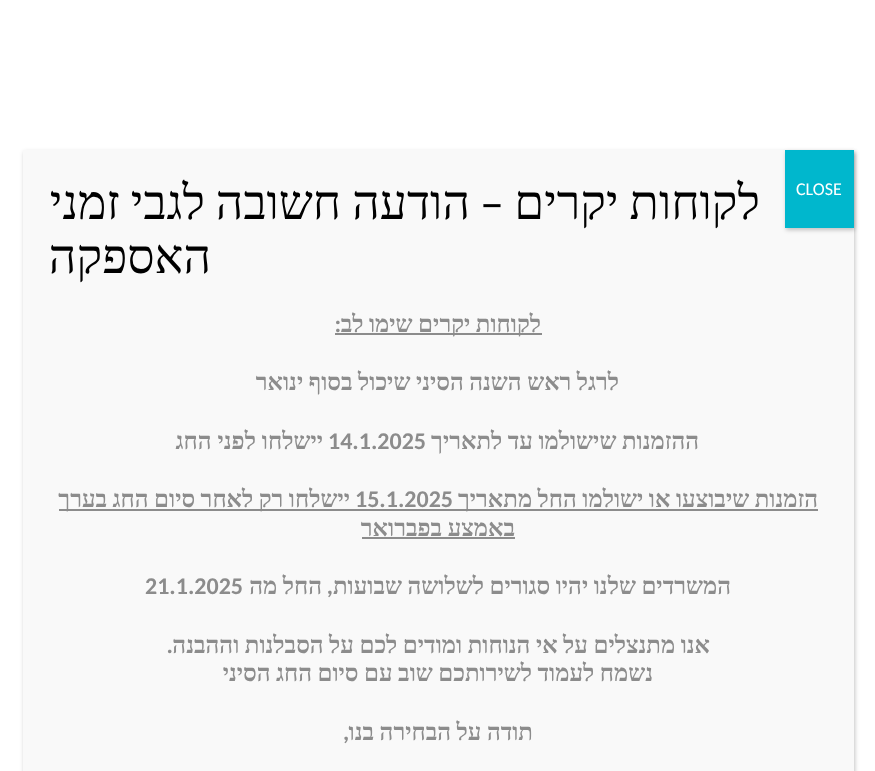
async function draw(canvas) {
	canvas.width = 875;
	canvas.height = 771;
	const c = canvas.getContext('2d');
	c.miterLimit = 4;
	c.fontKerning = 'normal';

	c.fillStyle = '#fff';
	c.fillRect(0, 0, 875, 771);
	c.fillStyle = '#0202023b';
	c.filter = 'blur(2px)';
	c.beginPath();
	c.rect(24, 152, 831, 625);
	c.fill();
	c.filter = 'none';
	c.fillStyle = '#f9f9f9';
	c.fillRect(23, 150, 831, 621);
	c.fillStyle = '#0202023b';
	c.filter = 'blur(2px)';
	c.beginPath();
	c.rect(786, 152, 69, 78);
	c.fill();
	c.filter = 'none';
	c.fillStyle = '#00b7cd';
	c.fillRect(785, 150, 69, 78);
	c.font = '18px Carlito';
	c.fillStyle = '#fff';
	c.fillText('CLOSE', 796, 195);
	c.wordSpacing = '-1px';
	c.direction = 'rtl';
	c.font = '48px Liberation Serif';
	c.fillStyle = '#000';
	c.fillText('לקוחות יקרים', 760, 219);
	c.wordSpacing = '0px';
	c.font = '48px Carlito';
	c.fillText('–', 504, 219);
	c.wordSpacing = '-1px';
	c.font = '48px Liberation Serif';
	c.fillText('הודעה חשובה לגבי זמני', 470, 219);
	c.wordSpacing = '0px';
	c.fillText('האספקה', 211, 273);
	c.fillStyle = '#8c8c8c';
	c.fillRect(335, 333, 207, 2);
	c.wordSpacing = '-0.5px';
	c.font = 'bold 24px Liberation Serif';
	c.fillText('לקוחות יקרים שימו לב', 541, 332);
	c.wordSpacing = '0px';
	c.font = 'bold 24px Carlito';
	c.fillText(':', 341, 332);
	c.wordSpacing = '-0.5px';
	c.font = 'bold 24px Liberation Serif';
	c.fillText('לרגל ראש השנה הסיני שיכול בסוף ינואר', 619, 390);
	c.fillText('ההזמנות שישולמו עד לתאריך', 699, 449);
	c.wordSpacing = '0px';
	c.direction = 'ltr';
	c.font = 'bold 24px Carlito';
	c.fillText('14.1.2025', 328, 449);
	c.direction = 'rtl';
	c.font = 'bold 24px Liberation Serif';
	c.fillText('יישלחו לפני החג', 323, 449);
	c.fillRect(59, 509, 759, 2);
	c.wordSpacing = '-0.5px';
	c.fillText('הזמנות שיבוצעו או ישולמו החל מתאריך', 818, 507);
	c.wordSpacing = '0px';
	c.direction = 'ltr';
	c.font = 'bold 24px Carlito';
	c.fillText('15.1.2025', 355, 507);
	c.wordSpacing = '-0.5px';
	c.direction = 'rtl';
	c.font = 'bold 24px Liberation Serif';
	c.fillText('יישלחו רק לאחר סיום החג בערך', 350, 507);
	c.fillText('באמצע בפברואר', 515, 536);
	c.fillRect(362, 537, 153, 2);
	c.fillText('המשרדים שלנו יהיו סגורים לשלושה שבועות', 731, 594);
	c.wordSpacing = '0px';
	c.font = 'bold 24px Carlito';
	c.fillText(',', 333, 594);
	c.wordSpacing = '-0.5px';
	c.font = 'bold 24px Liberation Serif';
	c.fillText('החל מה', 322, 594);
	c.wordSpacing = '0px';
	c.direction = 'ltr';
	c.font = 'bold 24px Carlito';
	c.fillText('21.1.2025', 145, 594);
	c.wordSpacing = '-0.5px';
	c.direction = 'rtl';
	c.font = 'bold 24px Liberation Serif';
	c.fillText('אנו מתנצלים על אי הנוחות ומודים לכם על הסבלנות וההבנה', 710, 653);
	c.wordSpacing = '0px';
	c.font = 'bold 24px Carlito';
	c.fillText('.', 173, 653);
	c.wordSpacing = '-0.5px';
	c.font = 'bold 24px Liberation Serif';
	c.fillText('נשמח לעמוד לשירותכם שוב עם סיום החג הסיני', 653, 681);
	c.fillText('תודה על הבחירה בנו', 533, 740);
	c.wordSpacing = '0px';
	c.direction = 'ltr';
	c.font = 'bold 24px Carlito';
	c.fillText(',', 343, 740);
}

draw(document.querySelector('canvas'));
